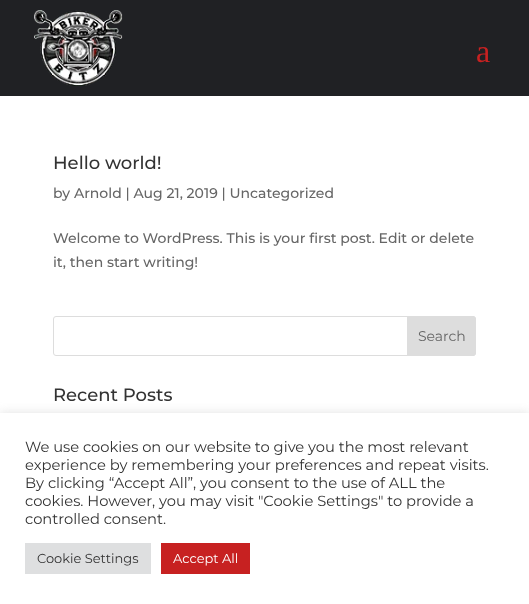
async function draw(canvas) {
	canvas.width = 529;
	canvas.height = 604;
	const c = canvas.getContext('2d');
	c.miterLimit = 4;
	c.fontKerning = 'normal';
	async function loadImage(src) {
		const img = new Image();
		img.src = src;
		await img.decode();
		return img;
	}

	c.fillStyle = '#fff';
	c.fillRect(0, 0, 529, 604);
	c.fillStyle = '#202124';
	c.fillRect(0, 0, 529, 96);
	c.drawImage(await loadImage('img1.png'), 34, 10, 89, 76);
	c.font = '32px Liberation Serif';
	c.fillStyle = '#c72121';
	c.fillText('a', 476, 62);
	c.font = '500 18px Montserrat';
	c.fillStyle = '#333';
	c.fillText('Hello world!', 53, 169);
	c.font = '500 14px Montserrat';
	c.fillStyle = '#666';
	for (const [text, x, y] of [
		['by Arnold | Aug 21, 2019 | Uncategorized', 53, 198],
		['Welcome to WordPress. This is your first post. Edit or delete', 53, 243],
		['it, then start writing!', 53, 267],
	]) {
		c.fillText(text, x, y);
	}
	c.beginPath();
	c.roundRect(53.5, 316.5, 422, 39, 2.5);
	c.strokeStyle = '#ddd';
	c.stroke();
	c.fillStyle = '#ddd';
	c.beginPath();
	c.roundRect(407.5, 316.5, 68, 39, [0, 2.5, 2.5, 0]);
	c.fill();
	c.stroke();
	c.font = '14px Montserrat';
	c.fillStyle = '#666';
	c.fillText('Search', 418, 341);
	c.font = '500 18px Montserrat';
	c.fillStyle = '#333';
	c.fillText('Recent Posts', 53, 401);
	c.fillStyle = '#acabab4d';
	c.filter = 'blur(5px)';
	c.beginPath();
	c.rect(0, 412, 529, 191);
	c.fill();
	c.filter = 'none';
	c.fillStyle = '#fff';
	c.fillRect(0, 413, 529, 191);
	c.font = '14.7px Montserrat';
	c.fillStyle = '#333';
	for (const [text, x, y] of [
		['We use cookies on our website to give you the most relevant', 25, 452],
		['experience by remembering your preferences and repeat visits.', 25, 470],
		['By clicking “Accept All”, you consent to the use of ALL the', 25, 488],
		['cookies. However, you may visit "Cookie Settings" to provide a', 25, 506],
		['controlled consent.', 25, 524],
	]) {
		c.fillText(text, x, y);
	}
	c.fillStyle = '#dedfe0';
	c.fillRect(25, 543, 126, 31);
	c.font = '13px Montserrat';
	c.fillStyle = '#333';
	c.fillText('Cookie Settings', 37, 563);
	c.fillStyle = '#c72121';
	c.fillRect(161, 543, 89, 31);
	c.fillStyle = '#fff';
	c.fillText('Accept All', 173, 563);
}

draw(document.querySelector('canvas'));
